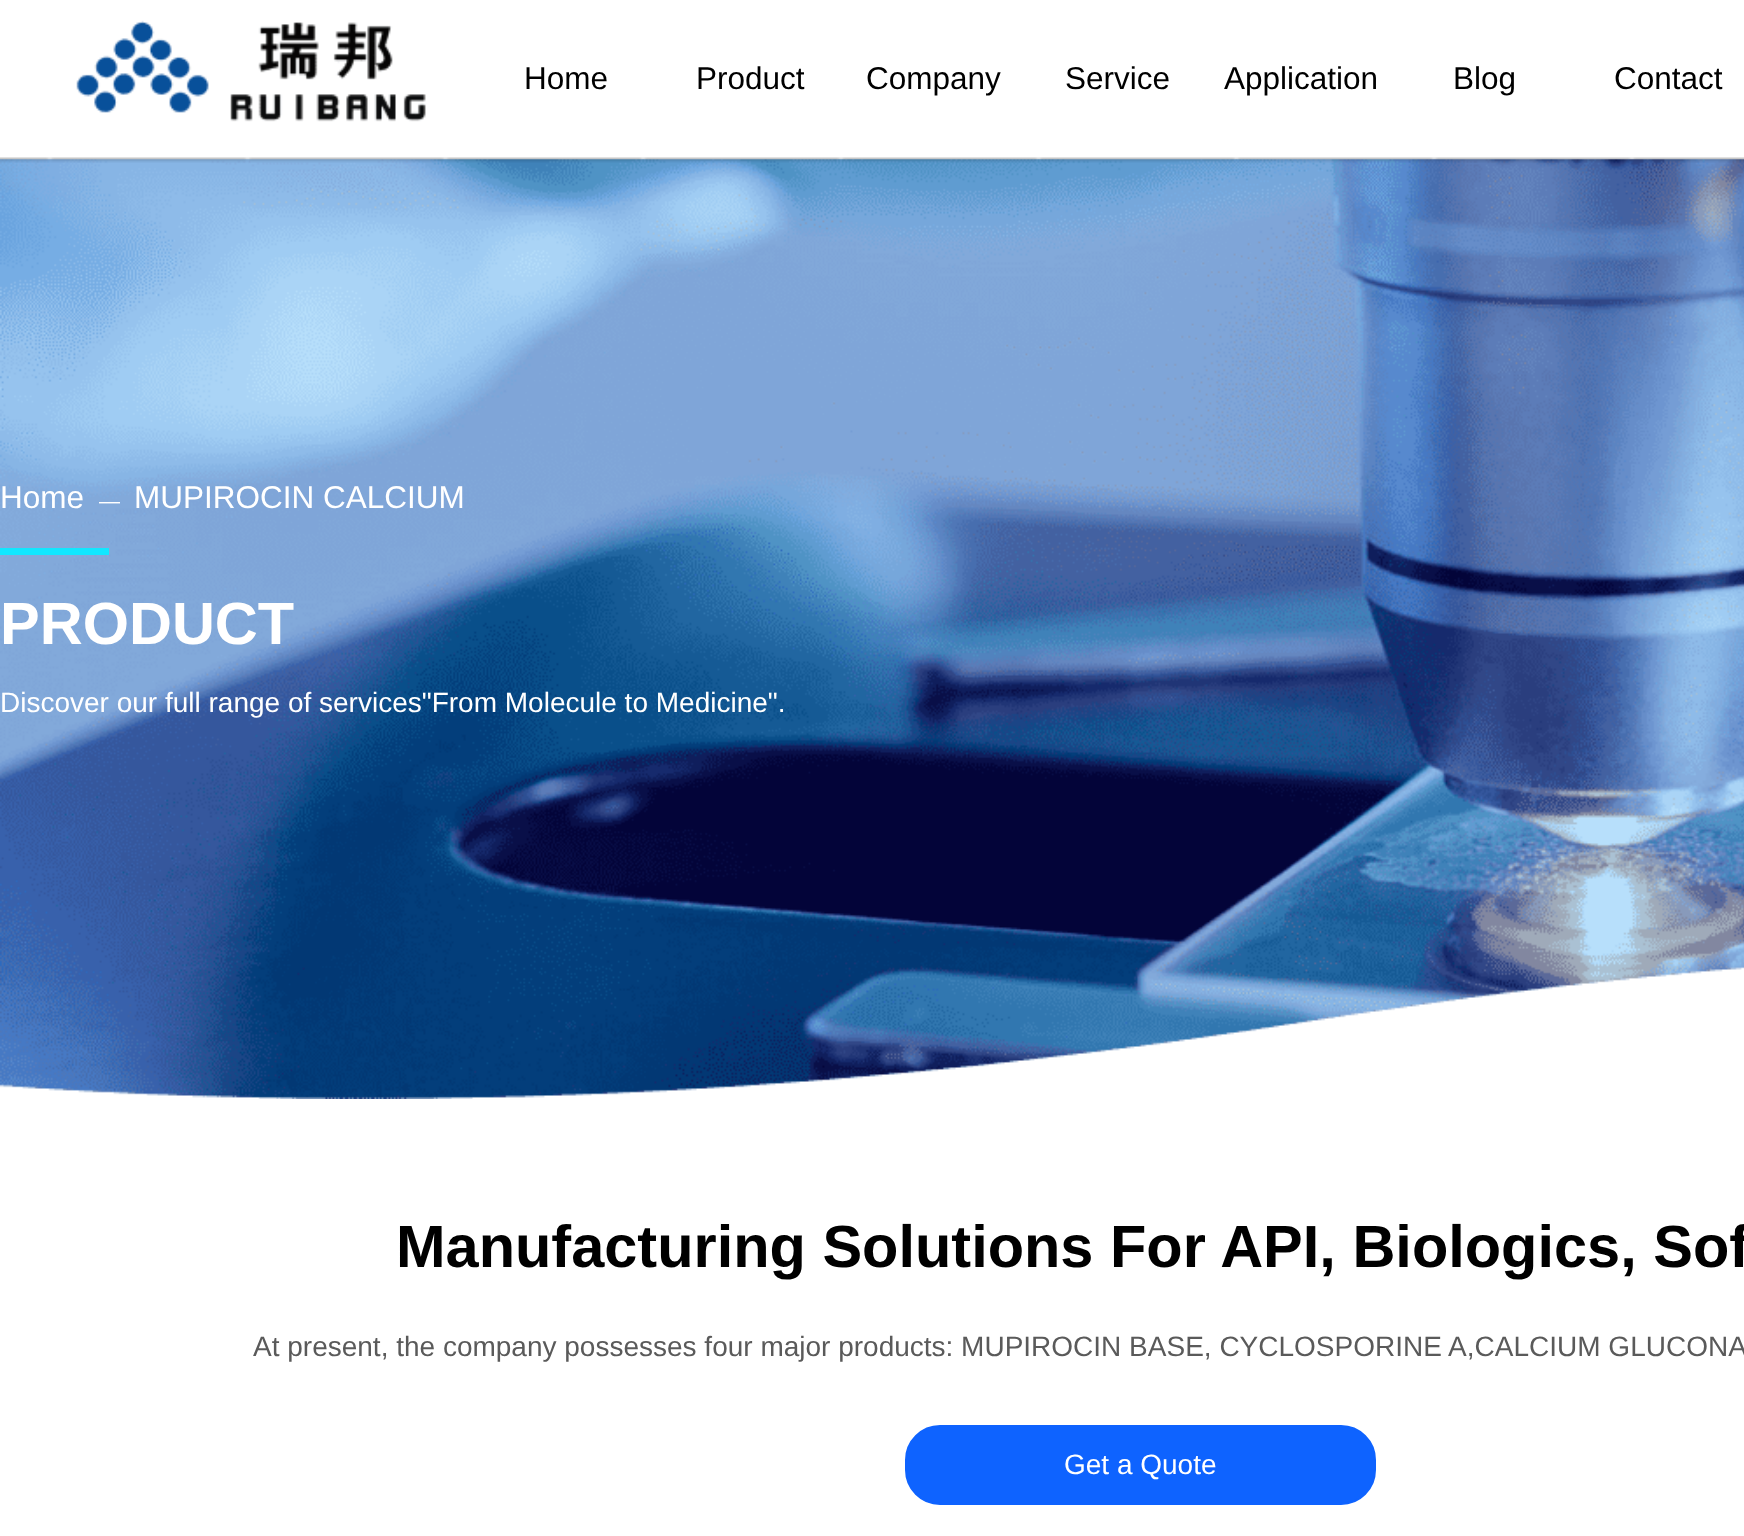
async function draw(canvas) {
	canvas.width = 1744;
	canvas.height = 1536;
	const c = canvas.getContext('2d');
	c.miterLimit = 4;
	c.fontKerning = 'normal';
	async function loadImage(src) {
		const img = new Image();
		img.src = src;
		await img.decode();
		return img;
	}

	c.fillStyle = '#fff';
	c.fillRect(0, 0, 1744, 1536);
	c.drawImage(await loadImage('img1.png'), 76, 20, 350, 102);
	c.font = '31.5px Liberation Sans';
	c.fillStyle = '#000';
	for (const [text, x, y] of [
		['Home', 524, 89],
		['Product', 696, 89],
		['Company', 866, 89],
		['Service', 1065, 89],
		['Application', 1224, 89],
		['Blog', 1453, 89],
		['Contact', 1614, 89],
	]) {
		c.fillText(text, x, y);
	}
	c.drawImage(await loadImage('img3.png'), 0, 159, 1744, 940);
	c.drawImage(await loadImage('img2.png'), 0, 157, 1744, 6);
	c.fillStyle = '#fff';
	c.fillText('Home', 0, 508);
	c.font = '21px Liberation Sans';
	c.fillText('—', 99, 508);
	c.font = '31.5px Liberation Sans';
	c.fillText('MUPIROCIN CALCIUM', 134, 508);
	c.fillStyle = '#11e7ff';
	c.fillRect(0, 548, 109, 7);
	c.font = 'bold 59.5px Liberation Sans';
	c.fillStyle = '#fff';
	c.fillText('PRODUCT', 0, 644);
	c.font = '28px Liberation Sans';
	c.fillText('Discover our full range of services"From Molecule to Medicine".', 0, 712);
	c.font = 'bold 59.5px Liberation Sans';
	c.fillStyle = '#000';
	c.fillText('Manufacturing Solutions For API, Biologics, Sof', 396, 1267);
	c.font = '28px Liberation Sans';
	c.fillStyle = '#5a5a5a';
	c.fillText('At present, the company possesses four major products: MUPIROCIN BASE, CYCLOSPORINE A,CALCIUM GLUCONA', 253, 1356);
	c.fillStyle = '#0e63ff';
	c.beginPath();
	c.roundRect(906, 1426, 469, 78, 34);
	c.fill();
	c.strokeStyle = '#0e63ff';
	c.lineWidth = 2;
	c.stroke();
	c.fillStyle = '#fff';
	c.fillText('Get a Quote', 1064, 1474);
}

draw(document.querySelector('canvas'));
